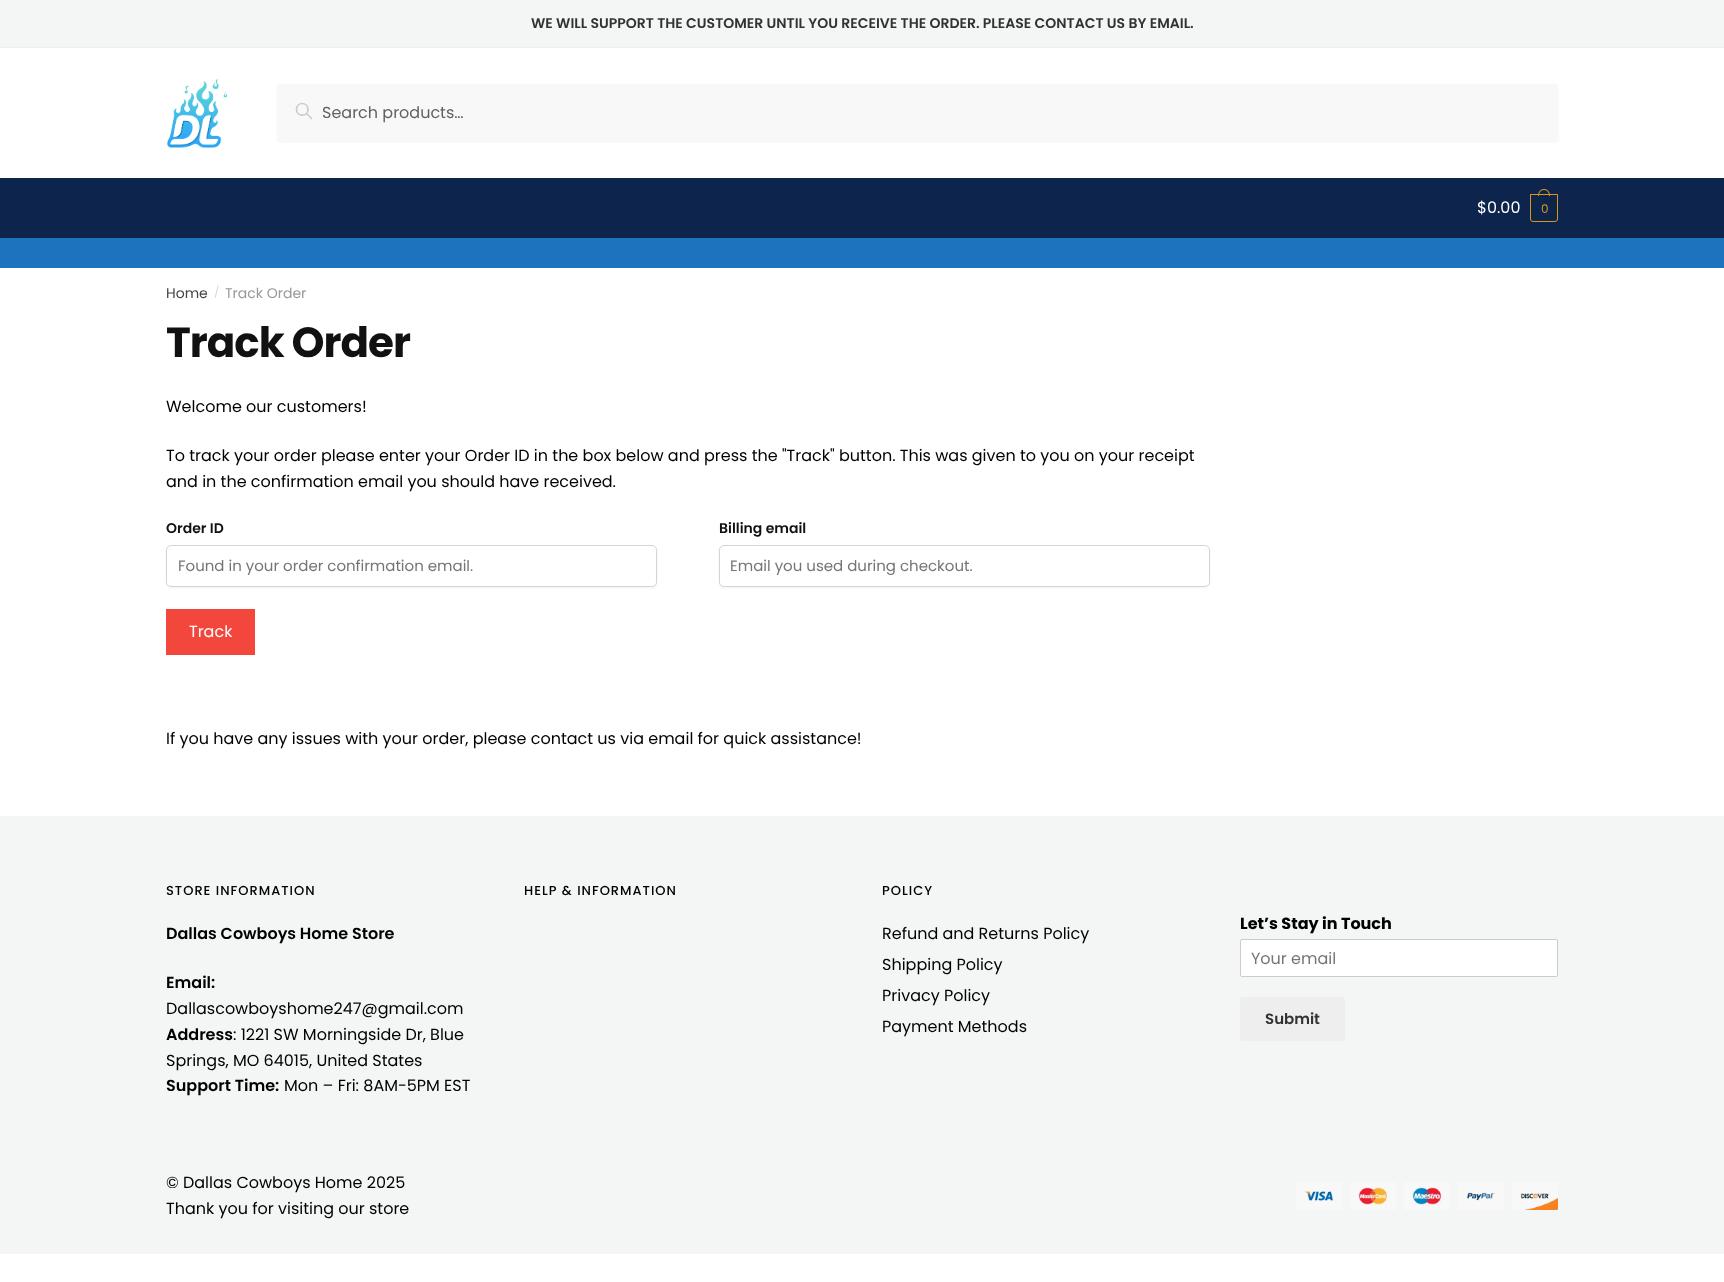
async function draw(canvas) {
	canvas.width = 1724;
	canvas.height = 1282;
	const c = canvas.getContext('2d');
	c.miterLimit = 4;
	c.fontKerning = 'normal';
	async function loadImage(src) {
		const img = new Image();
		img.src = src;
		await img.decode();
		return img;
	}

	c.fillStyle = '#fff';
	c.fillRect(0, 0, 1724, 1282);
	c.fillStyle = '#f4f5f5';
	c.fillRect(0, 0, 1724, 47);
	c.fillStyle = '#eee';
	c.fillRect(0, 47, 1724, 1);
	c.font = '600 14px Poppins';
	c.fillStyle = '#323232';
	c.fillText('WE WILL SUPPORT THE CUSTOMER UNTIL YOU RECEIVE THE ORDER. PLEASE CONTACT US BY EMAIL.', 531, 28);
	c.drawImage(await loadImage('img1.png'), 167, 79, 61, 69);
	c.fillStyle = '#0000000d';
	c.filter = 'blur(1px)';
	c.beginPath();
	c.roundRect(277, 85, 1281, 57, 4);
	c.fill();
	c.filter = 'none';
	c.fillStyle = '#f8f8f8';
	c.beginPath();
	c.roundRect(277, 84, 1281, 57, 4);
	c.fill();
	c.beginPath();
	c.moveTo(311.5, 118.5);
	c.lineTo(306.5, 113.5);
	c.moveTo(308, 109.5);
	c.bezierCurveTo(308, 117, 296.5, 117, 296.5, 109.5);
	c.bezierCurveTo(296.5, 101.5, 308, 101.5, 308, 109.5);
	c.closePath();
	c.strokeStyle = '#ccc';
	c.lineWidth = 1.7;
	c.lineCap = 'round';
	c.lineJoin = 'round';
	c.stroke();
	c.font = '16px Poppins';
	c.fillStyle = '#616161';
	c.fillText('Search products…', 322, 118);
	c.fillStyle = '#0d244d';
	c.fillRect(0, 178, 1724, 60);
	c.fillStyle = '#fff';
	c.fillText('$0.00', 1477, 213);
	c.beginPath();
	c.roundRect(1530.5, 194.5, 27, 27, [0, 0, 2.5, 2.5]);
	c.strokeStyle = '#dc9814';
	c.lineWidth = 1;
	c.lineJoin = 'miter';
	c.stroke();
	c.fillStyle = '#dc9814';
	c.beginPath();
	c.moveTo(1544, 189);
	c.bezierCurveTo(1548, 189, 1550, 192.5, 1550, 196);
	c.lineTo(1538, 196);
	c.bezierCurveTo(1538, 192.5, 1540, 189, 1544, 189);
	c.closePath();
	c.moveTo(1544, 190);
	c.bezierCurveTo(1547.5, 190, 1549, 193, 1549, 196);
	c.lineTo(1539, 196);
	c.bezierCurveTo(1539, 193, 1540.5, 190, 1544, 190);
	c.closePath();
	c.fill('evenodd');
	c.letterSpacing = '-1px';
	c.font = '12px Poppins';
	c.fillText('0', 1541, 213);
	c.fillStyle = '#1e73be';
	c.fillRect(0, 238, 1724, 30);
	c.letterSpacing = '0px';
	c.font = '14px Poppins';
	c.fillStyle = '#444';
	c.fillText('Home', 166, 298);
	c.font = '11px Poppins';
	c.fillStyle = '#d6d6d6';
	c.fillText('/', 214, 296);
	c.font = '14px Poppins';
	c.fillStyle = '#999';
	c.fillText('Track Order', 225, 298);
	c.letterSpacing = '-1px';
	c.font = 'bold 42px Poppins';
	c.fillStyle = '#111';
	c.fillText('Track Order', 166, 357);
	c.letterSpacing = '0px';
	c.font = '16px Poppins';
	c.fillStyle = '#000';
	for (const [text, x, y] of [
		['Welcome our customers!', 166, 412],
		['To track your order please enter your Order ID in the box below and press the "Track" button. This was given to you on your receipt', 166, 461],
		['and in the confirmation email you should have received.', 166, 487],
	]) {
		c.fillText(text, x, y);
	}
	c.font = '600 14px Poppins';
	c.fillStyle = '#111';
	c.fillText('Order ID', 166, 533);
	c.fillStyle = '#0000000d';
	c.filter = 'blur(1px)';
	c.beginPath();
	c.roundRect(166, 546, 491, 42, 5);
	c.fill();
	c.filter = 'none';
	c.fillStyle = '#fff';
	c.beginPath();
	c.roundRect(166.5, 545.5, 490, 41, 4.5);
	c.fill();
	c.strokeStyle = '#d2d6dc';
	c.stroke();
	c.font = '15px Poppins';
	c.fillStyle = '#757575';
	c.fillText('Found in your order confirmation email.', 178, 571);
	c.font = '600 14px Poppins';
	c.fillStyle = '#111';
	c.fillText('Billing email', 719, 533);
	c.fillStyle = '#0000000d';
	c.filter = 'blur(1px)';
	c.beginPath();
	c.roundRect(719, 546, 491, 42, 5);
	c.fill();
	c.filter = 'none';
	c.fillStyle = '#fff';
	c.beginPath();
	c.roundRect(719.5, 545.5, 490, 41, 4.5);
	c.fill();
	c.stroke();
	c.font = '15px Poppins';
	c.fillStyle = '#757575';
	c.fillText('Email you used during checkout.', 730, 571);
	c.fillStyle = '#f3473d';
	c.fillRect(166, 609, 89, 46);
	c.font = '16px Poppins';
	c.fillStyle = '#fff';
	c.fillText('Track', 189, 637);
	c.fillStyle = '#000';
	c.fillText('If you have any issues with your order, please contact us via email for quick assistance!', 166, 744);
	c.fillStyle = '#f4f5f5';
	c.fillRect(0, 816, 1724, 438);
	c.letterSpacing = '1px';
	c.font = '500 13px Poppins';
	c.fillStyle = '#000';
	c.fillText('STORE INFORMATION', 166, 895);
	c.letterSpacing = '0px';
	c.font = '600 16px Poppins';
	c.fillText('Dallas Cowboys Home Store', 166, 939);
	c.fillText('Email:', 166, 988);
	c.font = '16px Poppins';
	c.fillText('Dallascowboyshome247@gmail.com', 166, 1014);
	c.font = '600 16px Poppins';
	c.fillText('Address', 166, 1040);
	c.font = '16px Poppins';
	c.fillText(': 1221 SW Morningside Dr, Blue', 233, 1040);
	c.fillText('Springs, MO 64015, United States', 166, 1066);
	c.font = '600 16px Poppins';
	c.fillText('Support Time:', 166, 1091);
	c.font = '16px Poppins';
	c.fillText('Mon – Fri: 8AM-5PM EST', 284, 1091);
	c.letterSpacing = '1px';
	c.font = '500 13px Poppins';
	c.fillText('HELP & INFORMATION', 524, 895);
	c.fillText('POLICY', 882, 895);
	c.letterSpacing = '0px';
	c.font = '16px Poppins';
	for (const [text, x, y] of [
		['Refund and Returns Policy', 882, 939],
		['Shipping Policy', 882, 970],
		['Privacy Policy', 882, 1001],
		['Payment Methods', 882, 1032],
	]) {
		c.fillText(text, x, y);
	}
	c.font = 'bold 16px Poppins';
	c.fillText('Let’s Stay in Touch', 1240, 929);
	c.fillStyle = '#fff';
	c.beginPath();
	c.roundRect(1240.5, 939.5, 317, 37, 1.5);
	c.fill();
	c.strokeStyle = '#ccc';
	c.stroke();
	c.font = '16px Poppins';
	c.fillStyle = '#757575';
	c.fillText('Your email', 1251, 964);
	c.fillStyle = '#eee';
	c.beginPath();
	c.roundRect(1240, 997, 105, 44, 3);
	c.fill();
	c.font = '600 15px Poppins';
	c.fillStyle = '#323232';
	c.fillText('Submit', 1265, 1024);
	c.font = '16px Poppins';
	c.fillStyle = '#000';
	c.fillText('© Dallas Cowboys Home 2025', 166, 1188);
	c.fillText('Thank you for visiting our store', 166, 1214);
	c.drawImage(await loadImage('img2.png'), 1296, 1182, 262, 28);
}

draw(document.querySelector('canvas'));
